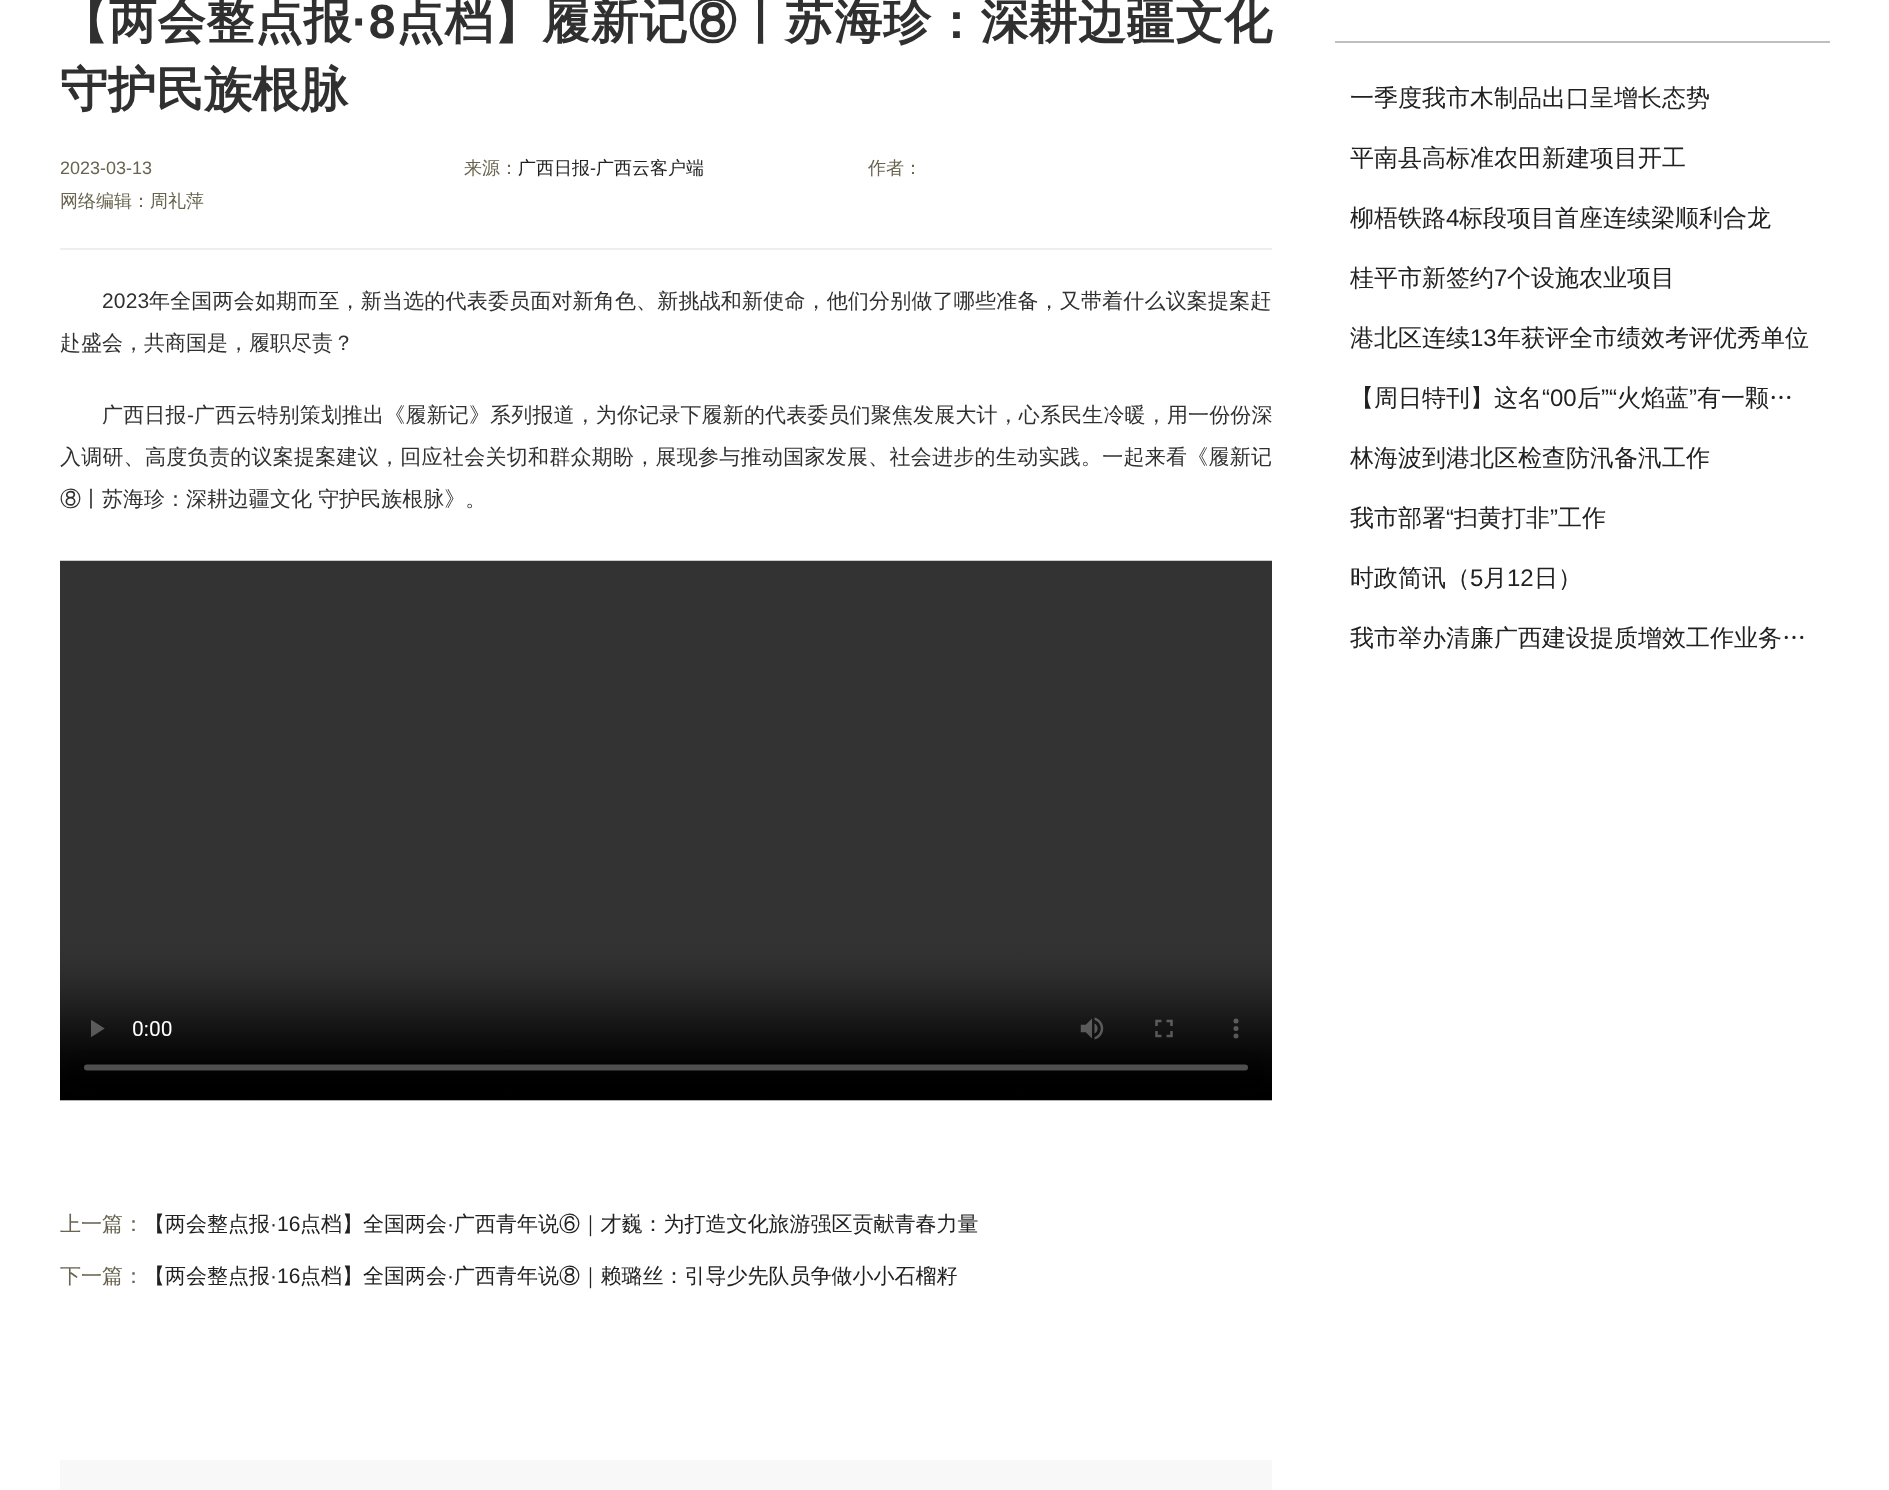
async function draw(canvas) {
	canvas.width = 1889;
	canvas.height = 1490;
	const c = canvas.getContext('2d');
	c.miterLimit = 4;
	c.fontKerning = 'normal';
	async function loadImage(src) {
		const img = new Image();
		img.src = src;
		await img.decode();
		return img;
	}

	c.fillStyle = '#fff';
	c.fillRect(0, 0, 1889, 1490);
	c.letterSpacing = '0.7px';
	c.font = 'bold 48px WenQuanYi Zen Hei';
	c.fillStyle = '#303030';
	c.fillText('【两会整点报', 60, 38);
	c.font = 'bold 48px Liberation Sans';
	c.fillText('·8', 352, 38);
	c.font = 'bold 48px WenQuanYi Zen Hei';
	c.fillText('点档】履新记⑧丨苏海珍：深耕边疆文化', 396, 38);
	c.letterSpacing = '0px';
	c.fillText('守护民族根脉', 60, 106);
	c.fillStyle = '#eee';
	c.fillRect(60, 248, 1212, 2);
	c.font = '18px Liberation Sans';
	c.fillStyle = '#696450';
	c.fillText('2023-03-13', 60, 174);
	c.font = '500 18px WenQuanYi Zen Hei';
	c.fillText('来源：', 464, 174);
	c.fillStyle = '#212121';
	c.fillText('广西日报', 518, 174);
	c.font = '18px Liberation Sans';
	c.fillText('-', 590, 174);
	c.font = '500 18px WenQuanYi Zen Hei';
	c.fillText('广西云客户端', 596, 174);
	c.fillStyle = '#696450';
	c.fillText('作者：', 868, 174);
	c.fillText('网络编辑：周礼萍', 60, 207);
	c.letterSpacing = '0.18px';
	c.font = '21px Liberation Sans';
	c.fillStyle = '#303030';
	c.fillText('2023', 102, 308);
	c.font = '500 21px WenQuanYi Zen Hei';
	c.fillText('年全国两会如期而至，新当选的代表委员面对新角色、新挑战和新使命，他们分别做了哪些准备，又带着什么议案提案赶', 149, 308);
	c.letterSpacing = '0px';
	c.fillText('赴盛会，共商国是，履职尽责？', 60, 350);
	c.letterSpacing = '0.15px';
	c.fillText('广西日报', 102, 422);
	c.font = '21px Liberation Sans';
	c.fillText('-', 187, 422);
	c.font = '500 21px WenQuanYi Zen Hei';
	c.fillText('广西云特别策划推出《履新记》系列报道，为你记录下履新的代表委员们聚焦发展大计，心系民生冷暖，用一份份深', 194, 422);
	c.letterSpacing = '0.27px';
	c.fillText('入调研、高度负责的议案提案建议，回应社会关切和群众期盼，展现参与推动国家发展、社会进步的生动实践。一起来看《履新记', 60, 464);
	c.letterSpacing = '0px';
	c.fillText('⑧丨苏海珍：深耕边疆文化 守护民族根脉》。', 60, 506);
	c.drawImage(await loadImage('img1.png'), 60, 560, 1212, 541);
	c.fillStyle = '#696450';
	c.fillText('上一篇：', 60, 1231);
	c.fillStyle = '#212121';
	c.fillText('【两会整点报', 144, 1231);
	c.font = '21px Liberation Sans';
	c.fillText('·16', 270, 1231);
	c.font = '500 21px WenQuanYi Zen Hei';
	c.fillText('点档】全国两会', 300, 1231);
	c.font = '21px Liberation Sans';
	c.fillText('·', 447, 1231);
	c.font = '500 21px WenQuanYi Zen Hei';
	c.fillText('广西青年说⑥｜才巍：为打造文化旅游强区贡献青春力量', 454, 1231);
	c.fillStyle = '#696450';
	c.fillText('下一篇：', 60, 1283);
	c.fillStyle = '#212121';
	c.fillText('【两会整点报', 144, 1283);
	c.font = '21px Liberation Sans';
	c.fillText('·16', 270, 1283);
	c.font = '500 21px WenQuanYi Zen Hei';
	c.fillText('点档】全国两会', 300, 1283);
	c.font = '21px Liberation Sans';
	c.fillText('·', 447, 1283);
	c.font = '500 21px WenQuanYi Zen Hei';
	c.fillText('广西青年说⑧｜赖璐丝：引导少先队员争做小小石榴籽', 454, 1283);
	c.fillStyle = '#f8f8f8';
	c.fillRect(60, 1460, 1212, 30);
	c.fillStyle = '#bfbfbf';
	c.fillRect(1335, 41, 495, 2);
	c.font = '500 24px WenQuanYi Zen Hei';
	c.fillStyle = '#212121';
	for (const [text, x, y] of [
		['一季度我市木制品出口呈增长态势', 1350, 106],
		['平南县高标准农田新建项目开工', 1350, 166],
		['柳梧铁路', 1350, 226],
	]) {
		c.fillText(text, x, y);
	}
	c.font = '24px Liberation Sans';
	c.fillText('4', 1446, 226);
	c.font = '500 24px WenQuanYi Zen Hei';
	c.fillText('标段项目首座连续梁顺利合龙', 1459, 226);
	c.fillText('桂平市新签约', 1350, 286);
	c.font = '24px Liberation Sans';
	c.fillText('7', 1494, 286);
	c.font = '500 24px WenQuanYi Zen Hei';
	c.fillText('个设施农业项目', 1507, 286);
	c.fillText('港北区连续', 1350, 346);
	c.font = '24px Liberation Sans';
	c.fillText('13', 1470, 346);
	c.font = '500 24px WenQuanYi Zen Hei';
	c.fillText('年获评全市绩效考评优秀单位', 1497, 346);
	c.fillText('【周日特刊】这名', 1350, 406);
	c.font = '24px Liberation Sans';
	c.fillText('“00', 1542, 406);
	c.font = '500 24px WenQuanYi Zen Hei';
	c.fillText('后', 1577, 406);
	c.font = '24px Liberation Sans';
	c.fillText('”“', 1601, 406);
	c.font = '500 24px WenQuanYi Zen Hei';
	c.fillText('火焰蓝', 1617, 406);
	c.font = '24px Liberation Sans';
	c.fillText('”', 1689, 406);
	c.font = '500 24px WenQuanYi Zen Hei';
	for (const [text, x, y] of [
		['有一颗…', 1697, 406],
		['林海波到港北区检查防汛备汛工作', 1350, 466],
		['我市部署', 1350, 526],
	]) {
		c.fillText(text, x, y);
	}
	c.font = '24px Liberation Sans';
	c.fillText('“', 1446, 526);
	c.font = '500 24px WenQuanYi Zen Hei';
	c.fillText('扫黄打非', 1454, 526);
	c.font = '24px Liberation Sans';
	c.fillText('”', 1550, 526);
	c.font = '500 24px WenQuanYi Zen Hei';
	c.fillText('工作', 1558, 526);
	c.fillText('时政简讯（', 1350, 586);
	c.font = '24px Liberation Sans';
	c.fillText('5', 1470, 586);
	c.font = '500 24px WenQuanYi Zen Hei';
	c.fillText('月', 1483, 586);
	c.font = '24px Liberation Sans';
	c.fillText('12', 1507, 586);
	c.font = '500 24px WenQuanYi Zen Hei';
	c.fillText('日）', 1534, 586);
	c.fillText('我市举办清廉广西建设提质增效工作业务…', 1350, 646);
}

draw(document.querySelector('canvas'));
